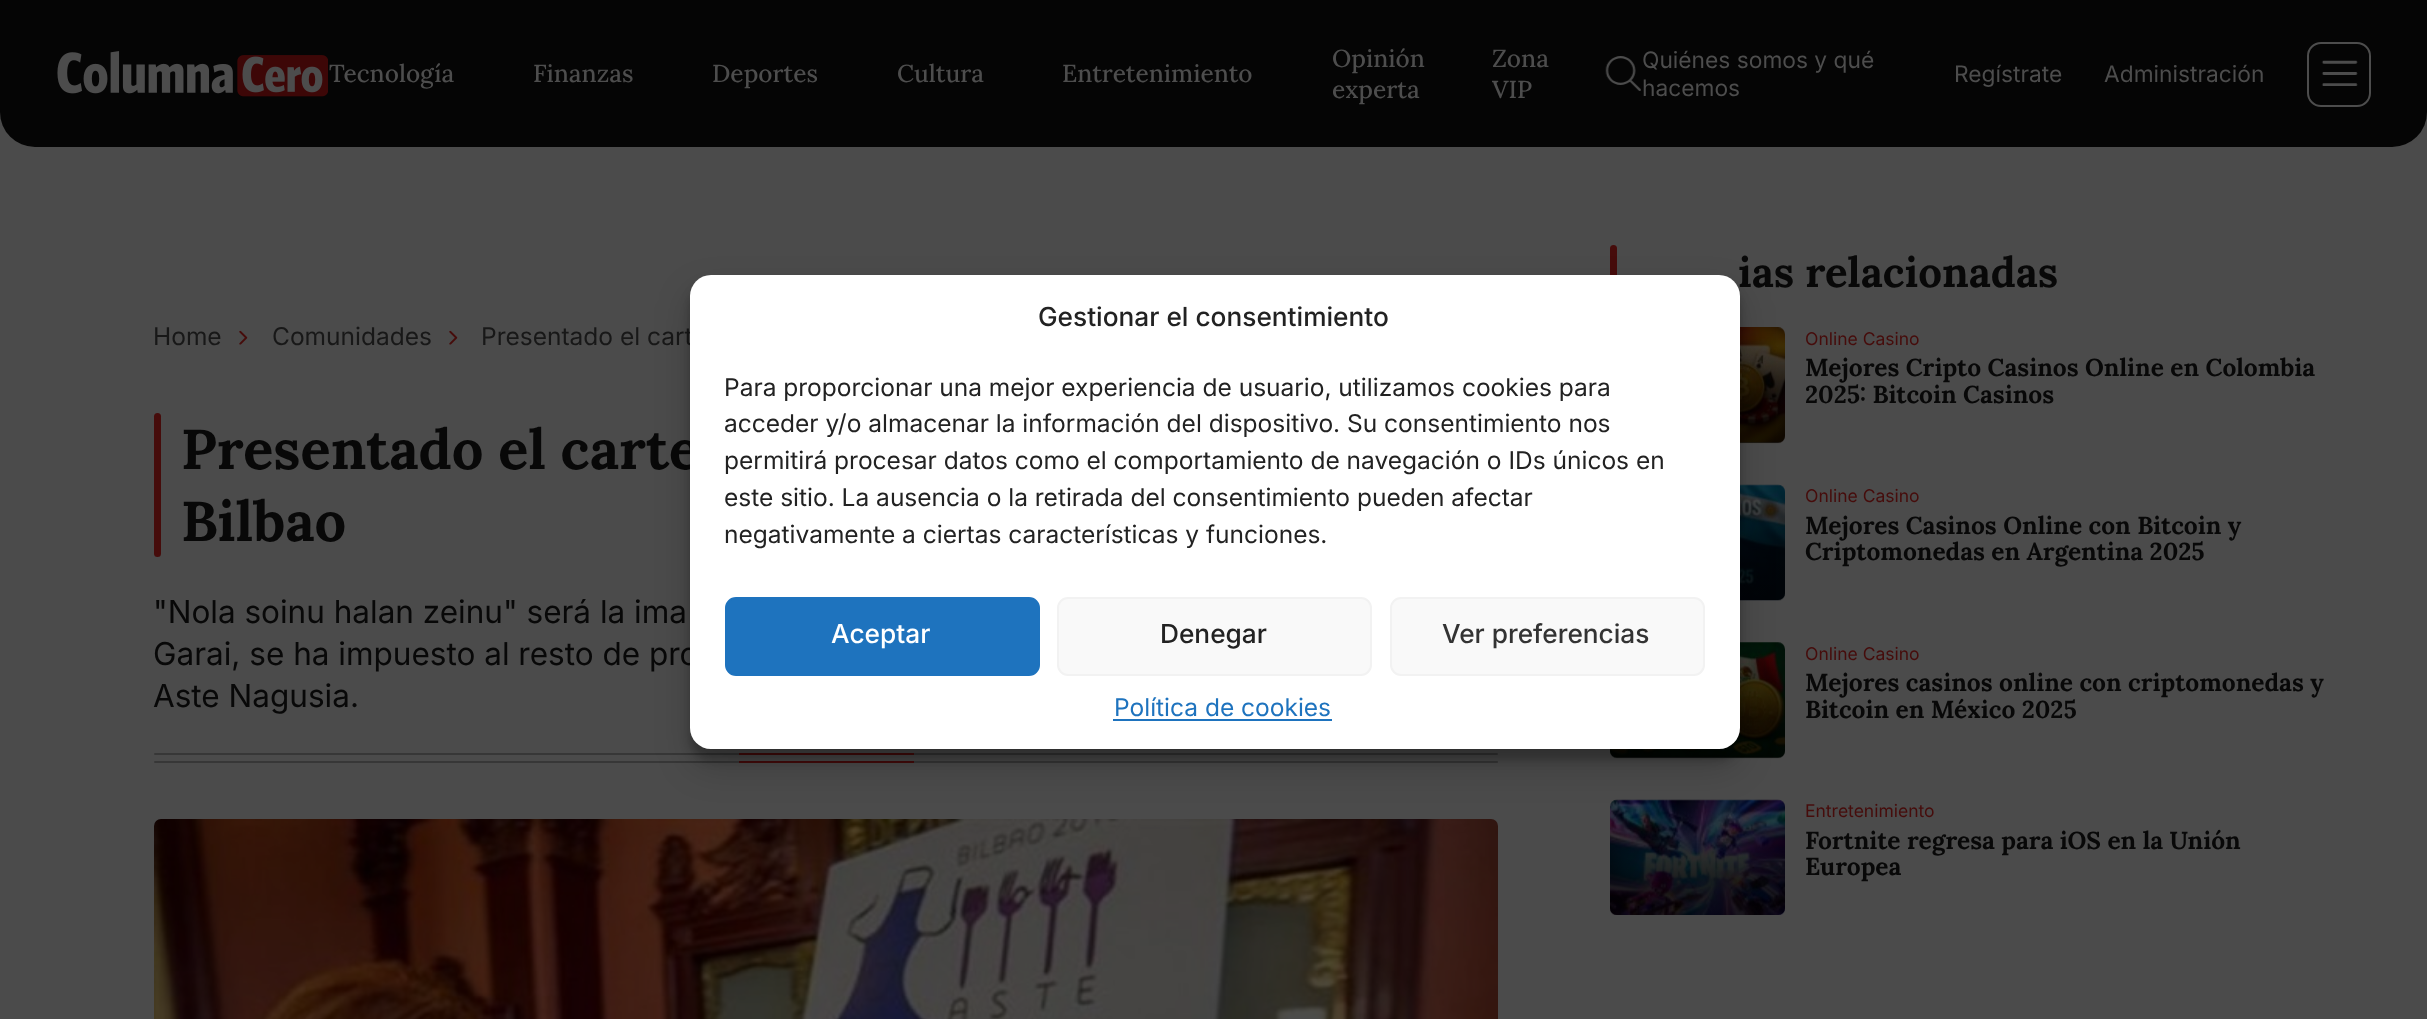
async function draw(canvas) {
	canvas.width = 2427;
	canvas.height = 1019;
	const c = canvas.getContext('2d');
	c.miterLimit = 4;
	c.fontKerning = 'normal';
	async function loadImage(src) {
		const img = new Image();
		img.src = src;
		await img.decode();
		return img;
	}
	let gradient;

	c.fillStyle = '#4b4b4b';
	c.fillRect(0, 0, 2427, 1019);
	c.fillStyle = '#050505';
	c.beginPath();
	c.roundRect(0, 0, 2427, 147, [0, 0, 35, 35]);
	c.fill();
	c.drawImage(await loadImage('img1.png'), 57, 51, 271, 46);
	c.font = '500 24.5px Lora';
	c.fillStyle = '#4d4d4d';
	for (const [text, x, y] of [
		['Tecnología', 329, 82],
		['Finanzas', 533, 82],
		['Deportes', 712, 82],
		['Cultura', 897, 82],
		['Entretenimiento', 1062, 82],
		['Opinión', 1332, 67],
		['experta', 1332, 98],
		['Zona', 1492, 67],
		['VIP', 1492, 98],
	]) {
		c.fillText(text, x, y);
	}
	c.drawImage(await loadImage('img2.png'), 1605, 56, 36, 35);
	c.font = '22.75px Inter';
	for (const [text, x, y] of [
		['Quiénes somos y qué', 1642, 68],
		['hacemos', 1642, 96],
		['Regístrate', 1954, 82],
		['Administración', 2104, 82],
	]) {
		c.fillText(text, x, y);
	}
	c.beginPath();
	c.roundRect(2308, 43, 62, 63, 13);
	c.strokeStyle = '#4d4d4d';
	c.lineWidth = 2;
	c.stroke();
	c.drawImage(await loadImage('img3.png'), 2321, 60, 37, 26);
	c.font = '24.5px Inter';
	c.fillStyle = '#181818';
	c.fillText('Home', 153, 345);
	c.drawImage(await loadImage('img4.png'), 239, 330, 9, 15);
	c.fillText('Comunidades', 272, 345);
	c.drawImage(await loadImage('img4.png'), 449, 330, 9, 15);
	c.fillText('Presentado el cart', 481, 345);
	c.fillStyle = '#460c0b';
	c.beginPath();
	c.roundRect(154, 413, 7, 144, 3.5);
	c.fill();
	c.font = 'bold 56px Lora';
	c.fillStyle = '#080808';
	c.fillText('Presentado el carte', 181, 469);
	c.fillText('Bilbao', 181, 541);
	c.font = '31.5px Inter';
	for (const [text, x, y] of [
		['"Nola soinu halan zeinu" será la ima', 153, 623],
		['Garai, se ha impuesto al resto de pro', 153, 665],
		['Aste Nagusia.', 153, 707],
	]) {
		c.fillText(text, x, y);
	}
	c.fillStyle = '#373737';
	c.beginPath();
	c.roundRect(154, 753, 1344, 2, 1);
	c.fill();
	c.fillStyle = '#460c0b';
	c.fillRect(739, 753, 175, 2);
	c.fillStyle = '#373737';
	c.beginPath();
	c.roundRect(154, 761, 1344, 2, 1);
	c.fill();
	c.fillStyle = '#460c0b';
	c.fillRect(739, 761, 175, 2);
	c.drawImage(await loadImage('img5.png'), 154, 819, 1344, 200);
	c.beginPath();
	c.roundRect(1610, 245, 7, 54, 3.5);
	c.fill();
	c.font = 'bold 42px Lora';
	c.fillStyle = '#080808';
	c.fillText('ias relacionadas', 1738, 287);
	c.drawImage(await loadImage('img6.png'), 1740, 327, 45, 117);
	gradient = c.createLinearGradient(1698, 443, 1698, 327);
	gradient.addColorStop(0.31, '#00000099');
	gradient.addColorStop(0.96, '#00000000');
	c.fillStyle = gradient;
	c.beginPath();
	c.roundRect(1610, 327, 175, 116, 7);
	c.fill();
	c.font = '17.5px Inter';
	c.fillStyle = '#460c0b';
	c.fillText('Online Casino', 1805, 345);
	c.font = 'bold 24.5px Lora';
	c.fillStyle = '#080808';
	c.fillText('Mejores Cripto Casinos Online en Colombia', 1805, 376);
	c.fillText('2025: Bitcoin Casinos', 1805, 403);
	c.drawImage(await loadImage('img7.png'), 1740, 484, 45, 117);
	gradient = c.createLinearGradient(1698, 600, 1698, 485);
	gradient.addColorStop(0.31, '#00000099');
	gradient.addColorStop(0.96, '#00000000');
	c.fillStyle = gradient;
	c.beginPath();
	c.roundRect(1610, 485, 175, 115, 7);
	c.fill();
	c.font = '17.5px Inter';
	c.fillStyle = '#460c0b';
	c.fillText('Online Casino', 1805, 502);
	c.font = 'bold 24.5px Lora';
	c.fillStyle = '#080808';
	c.fillText('Mejores Casinos Online con Bitcoin y', 1805, 534);
	c.fillText('Criptomonedas en Argentina 2025', 1805, 560);
	c.drawImage(await loadImage('img8.png'), 1610, 642, 175, 117);
	gradient = c.createLinearGradient(1698, 758, 1698, 642);
	gradient.addColorStop(0.31, '#00000099');
	gradient.addColorStop(0.96, '#00000000');
	c.fillStyle = gradient;
	c.beginPath();
	c.roundRect(1610, 642, 175, 116, 7);
	c.fill();
	c.font = '17.5px Inter';
	c.fillStyle = '#460c0b';
	c.fillText('Online Casino', 1805, 660);
	c.font = 'bold 24.5px Lora';
	c.fillStyle = '#080808';
	c.fillText('Mejores casinos online con criptomonedas y', 1805, 691);
	c.fillText('Bitcoin en México 2025', 1805, 718);
	c.drawImage(await loadImage('img9.png'), 1610, 799, 175, 116);
	gradient = c.createLinearGradient(1698, 915, 1698, 800);
	gradient.addColorStop(0.31, '#00000099');
	gradient.addColorStop(0.96, '#00000000');
	c.fillStyle = gradient;
	c.beginPath();
	c.roundRect(1610, 800, 175, 115, 7);
	c.fill();
	c.font = '17.5px Inter';
	c.fillStyle = '#460c0b';
	c.fillText('Entretenimiento', 1805, 817);
	c.font = 'bold 24.5px Lora';
	c.fillStyle = '#080808';
	c.fillText('Fortnite regresa para iOS en la Unión', 1805, 849);
	c.fillText('Europea', 1805, 875);
	c.fillStyle = '#0000003b';
	c.filter = 'blur(5px)';
	c.beginPath();
	c.roundRect(690, 285, 1050, 475, 21);
	c.fill();
	c.filter = 'none';
	c.fillStyle = '#00000030';
	c.filter = 'blur(17.5px)';
	c.beginPath();
	c.roundRect(690, 292, 1050, 475, 21);
	c.fill();
	c.filter = 'none';
	c.fillStyle = '#fff';
	c.beginPath();
	c.roundRect(690, 275, 1050, 474, 21);
	c.fill();
	c.font = '500 26.25px Inter';
	c.fillStyle = '#222';
	c.fillText('Gestionar el consentimiento', 1038, 326);
	c.font = '24.5px Inter';
	c.fillText('Para proporcionar una mejor experiencia de usuario, utilizamos cookies para', 724, 396);
	c.save();
	c.beginPath();
	c.rect(725, 369, 980, 193);
	c.clip();
	c.fillText('acceder y/o almacenar la información del dispositivo. Su consentimiento nos', 724, 432);
	c.restore();
	for (const [text, x, y] of [
		['permitirá procesar datos como el comportamiento de navegación o IDs únicos en', 724, 469],
		['este sitio. La ausencia o la retirada del consentimiento pueden afectar', 724, 506],
		['negativamente a ciertas características y funciones.', 724, 543],
	]) {
		c.fillText(text, x, y);
	}
	c.fillStyle = '#1e73be';
	c.beginPath();
	c.roundRect(726, 598, 313, 77, 10);
	c.fill();
	c.strokeStyle = '#1e73be';
	c.stroke();
	c.font = '500 26.25px Inter';
	c.fillStyle = '#fff';
	c.fillText('Aceptar', 831, 643);
	c.fillStyle = '#f9f9f9';
	c.beginPath();
	c.roundRect(1058, 598, 313, 77, 10);
	c.fill();
	c.strokeStyle = '#f2f2f2';
	c.stroke();
	c.fillStyle = '#222';
	c.fillText('Denegar', 1160, 643);
	c.fillStyle = '#f9f9f9';
	c.beginPath();
	c.roundRect(1391, 598, 313, 77, 10);
	c.fill();
	c.stroke();
	c.fillStyle = '#333';
	c.fillText('Ver preferencias', 1442, 643);
	c.font = '24.5px Inter';
	c.fillStyle = '#1e73be';
	c.fillText('Política de cookies', 1114, 716);
	c.fillRect(1113, 719, 219, 2);
}

draw(document.querySelector('canvas'));
